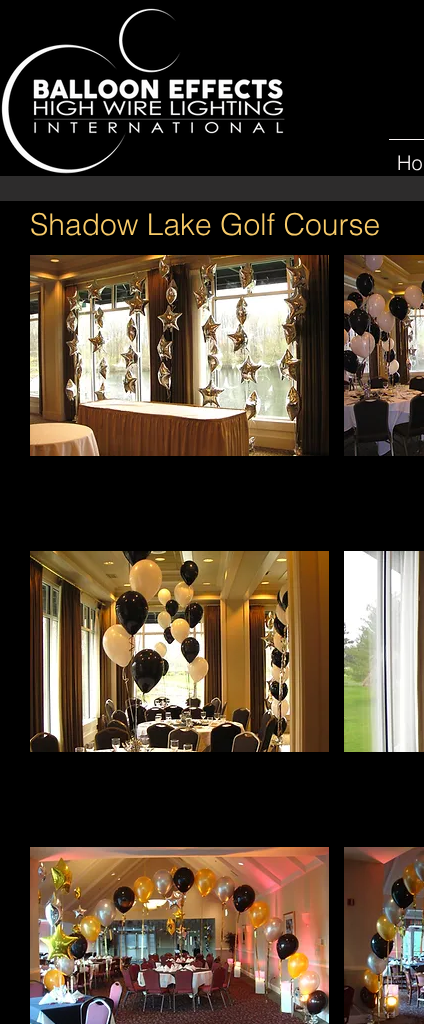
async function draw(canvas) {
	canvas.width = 424;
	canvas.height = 1024;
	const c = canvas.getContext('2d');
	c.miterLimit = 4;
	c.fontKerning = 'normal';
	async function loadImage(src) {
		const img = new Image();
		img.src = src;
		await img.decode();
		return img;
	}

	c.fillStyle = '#000';
	c.fillRect(0, 0, 424, 1024);
	c.drawImage(await loadImage('img1.png'), 1, 8, 284, 166);
	c.fillStyle = '#f9f4f4';
	c.fillRect(389, 139, 35, 1);
	c.font = '300 20px helvetica';
	c.fillText('Ho', 397, 170);
	c.fillStyle = '#000000b3';
	c.filter = 'blur(2.5px)';
	c.beginPath();
	c.rect(0, 176, 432, 25);
	c.fill();
	c.filter = 'none';
	c.fillStyle = '#2d2c2c';
	c.fillRect(0, 176, 424, 25);
	c.font = '300 30px helvetica';
	c.fillStyle = '#f9cc6a';
	c.fillText('Shadow Lake Golf Course', 30, 235);
	c.drawImage(await loadImage('img2.png'), 30, 255, 299, 201);
	c.drawImage(await loadImage('img3.png'), 344, 255, 80, 201);
	c.drawImage(await loadImage('img4.png'), 30, 551, 299, 201);
	c.drawImage(await loadImage('img5.png'), 344, 551, 80, 201);
	c.drawImage(await loadImage('img6.png'), 30, 847, 299, 177);
	c.drawImage(await loadImage('img7.png'), 344, 847, 80, 177);
}

draw(document.querySelector('canvas'));
